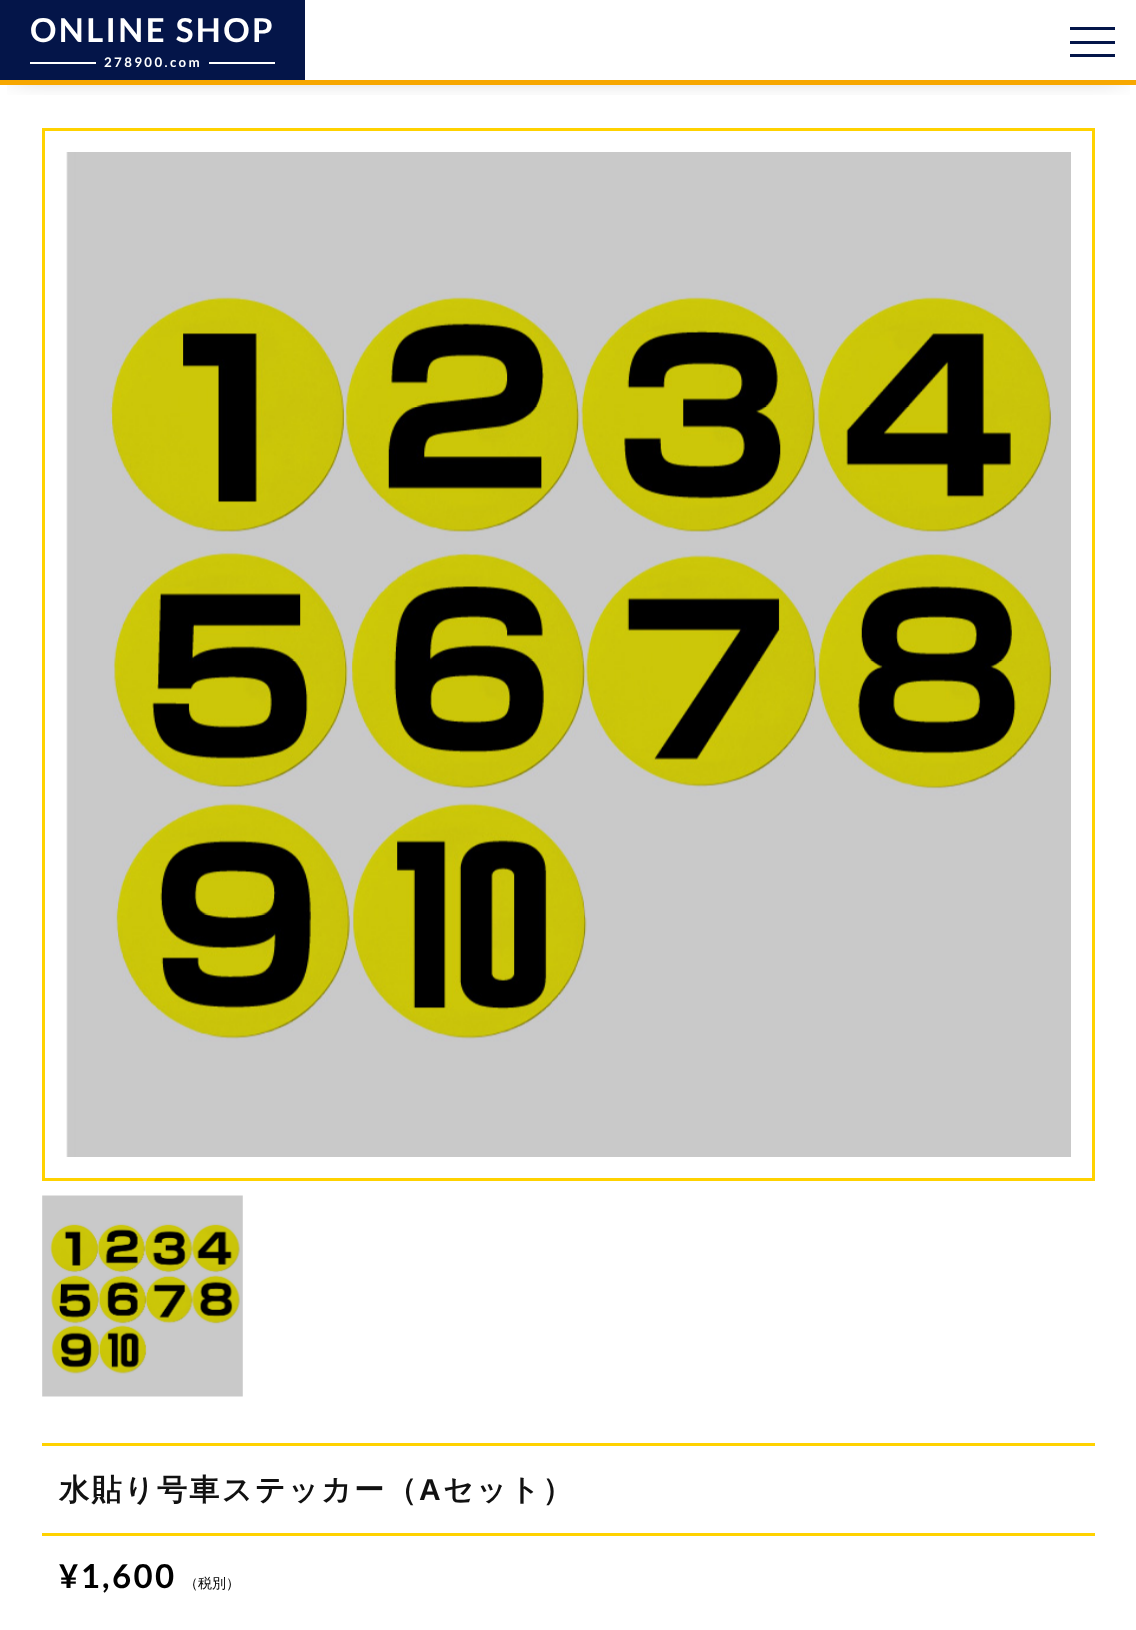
async function draw(canvas) {
	canvas.width = 1136;
	canvas.height = 1630;
	const c = canvas.getContext('2d');
	c.miterLimit = 4;
	c.fontKerning = 'normal';
	async function loadImage(src) {
		const img = new Image();
		img.src = src;
		await img.decode();
		return img;
	}

	c.fillStyle = '#fff';
	c.fillRect(0, 0, 1136, 1630);
	c.save();
	c.beginPath();
	c.rect(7, 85, 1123, 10);
	c.clip();
	c.fillStyle = '#00000080';
	c.filter = 'blur(15px)';
	c.beginPath();
	c.rect(15, 15, 1107, 54);
	c.fill();
	c.filter = 'none';
	c.restore();
	c.fillStyle = '#f7a700';
	c.fillRect(0, 80, 1136, 5);
	c.fillStyle = '#041549';
	c.fillRect(0, 0, 305, 80);
	c.letterSpacing = '2.4px';
	c.font = 'bold 33px Lato';
	c.fillStyle = '#fff';
	c.fillText('ONLINE SHOP', 30, 42);
	c.fillRect(30, 62, 66, 2);
	c.font = 'bold 13.25px Lato';
	c.fillText('278900.com', 104, 67);
	for (const [x, y, w, h, color] of [
		[209, 62, 66, 2, '#fff'],
		[1070, 27, 45, 3, '#041549'],
		[1070, 41, 45, 3, '#041549'],
		[1070, 54, 45, 3, '#041549'],
	]) {
		c.fillStyle = color;
		c.fillRect(x, y, w, h);
	}
	c.strokeStyle = '#ffd200';
	c.lineWidth = 3;
	c.strokeRect(43.5, 129.5, 1050, 1050);
	c.drawImage(await loadImage('img1.png'), 66, 152, 1005, 1005);
	c.drawImage(await loadImage('img2.png'), 42, 1195, 201, 202);
	c.fillStyle = '#ffd200';
	c.fillRect(42, 1443, 1053, 3);
	c.fillRect(42, 1533, 1053, 3);
	c.font = 'bold 30px WenQuanYi Zen Hei';
	c.fillStyle = '#111';
	c.fillText('水貼り号車ステッカー（', 59, 1500);
	c.font = 'bold 30px Liberation Sans';
	c.fillText('A', 419, 1500);
	c.font = 'bold 30px WenQuanYi Zen Hei';
	c.fillText('セット）', 443, 1500);
	c.font = 'bold 33px Lato';
	c.fillStyle = '#000';
	c.fillText('¥1,600', 59, 1588);
	c.letterSpacing = '0px';
	c.font = '500 14px WenQuanYi Zen Hei';
	c.fillText('（税別）', 184, 1588);
}

draw(document.querySelector('canvas'));
